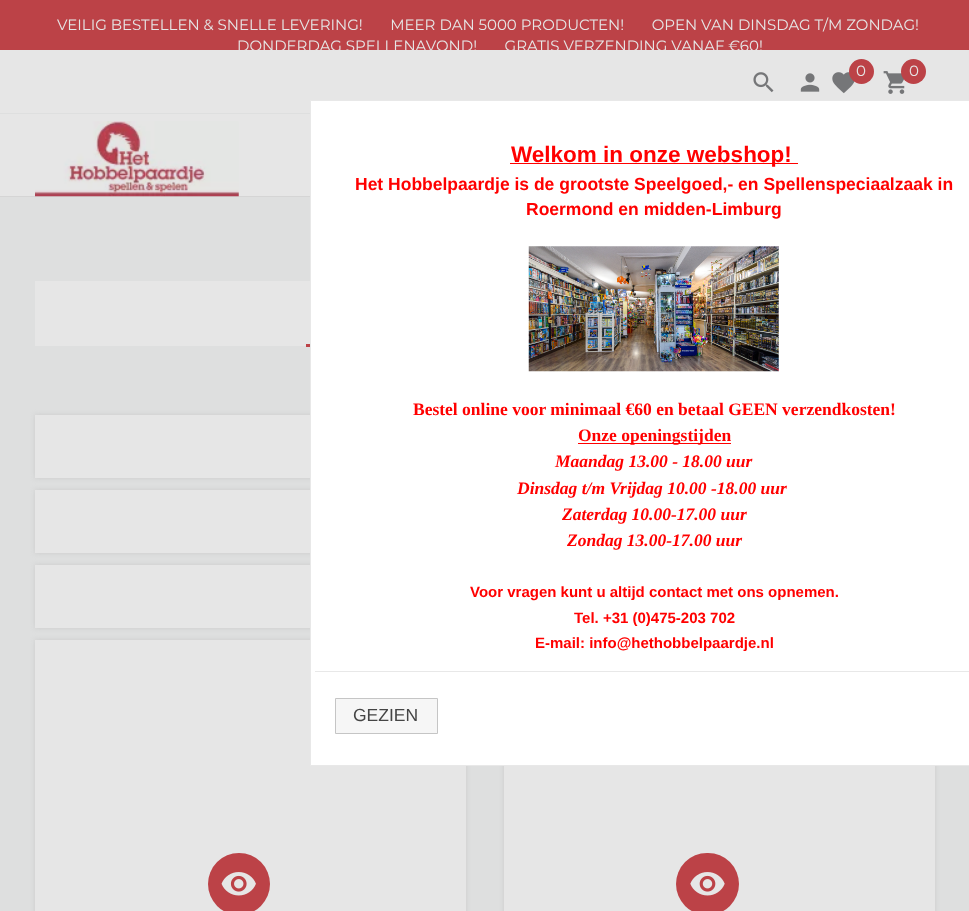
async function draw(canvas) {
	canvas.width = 969;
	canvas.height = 911;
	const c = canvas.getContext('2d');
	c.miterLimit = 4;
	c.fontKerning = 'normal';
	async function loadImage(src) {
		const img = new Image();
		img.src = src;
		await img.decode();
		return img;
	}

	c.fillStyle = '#dedfdf';
	c.fillRect(0, 0, 969, 911);
	for (const [x, y, w, h, color] of [
		[0, 50, 969, 146, '#e6e6e6'],
		[0, 196, 310, 1, '#d5d5d5'],
		[0, 0, 969, 50, '#bc4247'],
	]) {
		c.fillStyle = color;
		c.fillRect(x, y, w, h);
	}
	c.font = '15px Montserrat';
	c.fillStyle = '#e6e6e6';
	c.fillText('VEILIG BESTELLEN & SNELLE LEVERING!       MEER DAN 5000 PRODUCTEN!       OPEN VAN DINSDAG T/M ZONDAG!', 57, 30);
	c.fillText('DONDERDAG SPELLENAVOND!       GRATIS VERZENDING VANAF €60!', 237, 51);
	c.drawImage(await loadImage('img1.png'), 753, 72, 21, 21);
	c.drawImage(await loadImage('img2.png'), 800, 73, 20, 19);
	c.drawImage(await loadImage('img3.png'), 832, 72, 23, 22);
	c.fillStyle = '#bc4247';
	c.beginPath();
	c.arc(861.5, 71.5, 12.5, 0, 2 * Math.PI);
	c.fill();
	c.fillStyle = '#e6e6e6';
	c.fillText('0', 856, 76);
	c.drawImage(await loadImage('img4.png'), 883, 71, 22, 23);
	c.fillStyle = '#bc4247';
	c.beginPath();
	c.arc(913.5, 71.5, 12.5, 0, 2 * Math.PI);
	c.fill();
	c.fillStyle = '#e6e6e6';
	c.fillText('0', 909, 76);
	c.fillStyle = '#dedfdf';
	c.fillRect(0, 113, 310, 1);
	c.drawImage(await loadImage('img5.png'), 35, 121, 204, 76);
	c.fillStyle = '#b7b7b780';
	c.filter = 'blur(2.5px)';
	c.beginPath();
	c.rect(35, 415, 900, 63);
	c.fill();
	c.filter = 'none';
	c.filter = 'blur(2.5px)';
	c.beginPath();
	c.rect(35, 490, 900, 63);
	c.fill();
	c.filter = 'none';
	c.filter = 'blur(2.5px)';
	c.beginPath();
	c.rect(35, 565, 900, 63);
	c.fill();
	c.filter = 'none';
	c.filter = 'blur(2.5px)';
	c.beginPath();
	c.rect(35, 640, 431, 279);
	c.fill();
	c.filter = 'none';
	c.fillStyle = '#e6e6e6';
	c.fillRect(35, 640, 431, 271);
	c.fillStyle = '#b7b7b780';
	c.filter = 'blur(2.5px)';
	c.beginPath();
	c.rect(504, 640, 431, 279);
	c.fill();
	c.filter = 'none';
	c.fillStyle = '#fff';
	c.beginPath();
	c.rect(310.5, 100.5, 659, 665);
	c.fill();
	c.strokeStyle = '#e8e8e8';
	c.stroke();
	c.fillStyle = '#f00';
	c.fillRect(510, 163, 288, 1);
	c.font = 'bold 22.5px Liberation Sans';
	c.fillText('Welkom in onze webshop!', 511, 162);
	c.font = 'bold 17.5px Liberation Sans';
	c.fillText('Het Hobbelpaardje is de grootste Speelgoed,- en Spellenspeciaalzaak in', 355, 190);
	c.fillText('Roermond en midden-Limburg', 526, 215);
	c.drawImage(await loadImage('img6.png'), 528, 246, 251, 126);
	c.font = 'bold 17.5px Liberation Serif';
	c.fillText('Bestel online voor minimaal €60 en betaal GEEN verzendkosten!', 413, 415);
	c.fillRect(578, 443, 153, 1);
	c.fillText('Onze openingstijden', 578, 441);
	c.font = 'italic bold 17.5px Liberation Serif';
	for (const [text, x, y] of [
		['Maandag 13.00 - 18.00 uur', 555, 467],
		['Dinsdag t/m Vrijdag 10.00 -18.00 uur', 517, 494],
		['Zaterdag 10.00-17.00 uur', 562, 520],
		['Zondag 13.00-17.00 uur', 567, 546],
	]) {
		c.fillText(text, x, y);
	}
	c.font = 'bold 15px Liberation Sans';
	for (const [text, x, y] of [
		['Voor vragen kunt u altijd contact met ons opnemen.', 470, 597],
		['Tel. +31 (0)475-203 702', 574, 623],
		['E-mail: info@hethobbelpaardje.nl', 535, 648],
	]) {
		c.fillText(text, x, y);
	}
	c.fillStyle = '#e8e8e8';
	c.fillRect(315, 671, 654, 1);
	c.fillStyle = '#f6f6f6';
	c.beginPath();
	c.rect(335.5, 698.5, 102, 35);
	c.fill();
	c.strokeStyle = '#c5c5c5';
	c.stroke();
	c.font = '17.5px Liberation Sans';
	c.fillStyle = '#454545';
	c.fillText('GEZIEN', 353, 721);
	for (const [x, y, w, h, color] of [
		[35, 281, 275, 65, '#e6e6e6'],
		[306, 344, 4, 3, '#bc4247'],
		[35, 415, 275, 63, '#e6e6e6'],
		[35, 490, 275, 63, '#e6e6e6'],
		[35, 565, 275, 63, '#e6e6e6'],
	]) {
		c.fillStyle = color;
		c.fillRect(x, y, w, h);
	}
	c.fillStyle = '#bc4247';
	c.beginPath();
	c.arc(239, 884, 31, 0, 2 * Math.PI);
	c.fill();
	c.drawImage(await loadImage('img7.png'), 221, 872, 35, 24);
	c.fillStyle = '#e6e6e6';
	c.fillRect(504, 766, 431, 145);
	c.fillStyle = '#bc4247';
	c.beginPath();
	c.roundRect(676, 853, 63, 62, 31);
	c.fill();
	c.drawImage(await loadImage('img8.png'), 690, 872, 35, 24);
}

draw(document.querySelector('canvas'));
